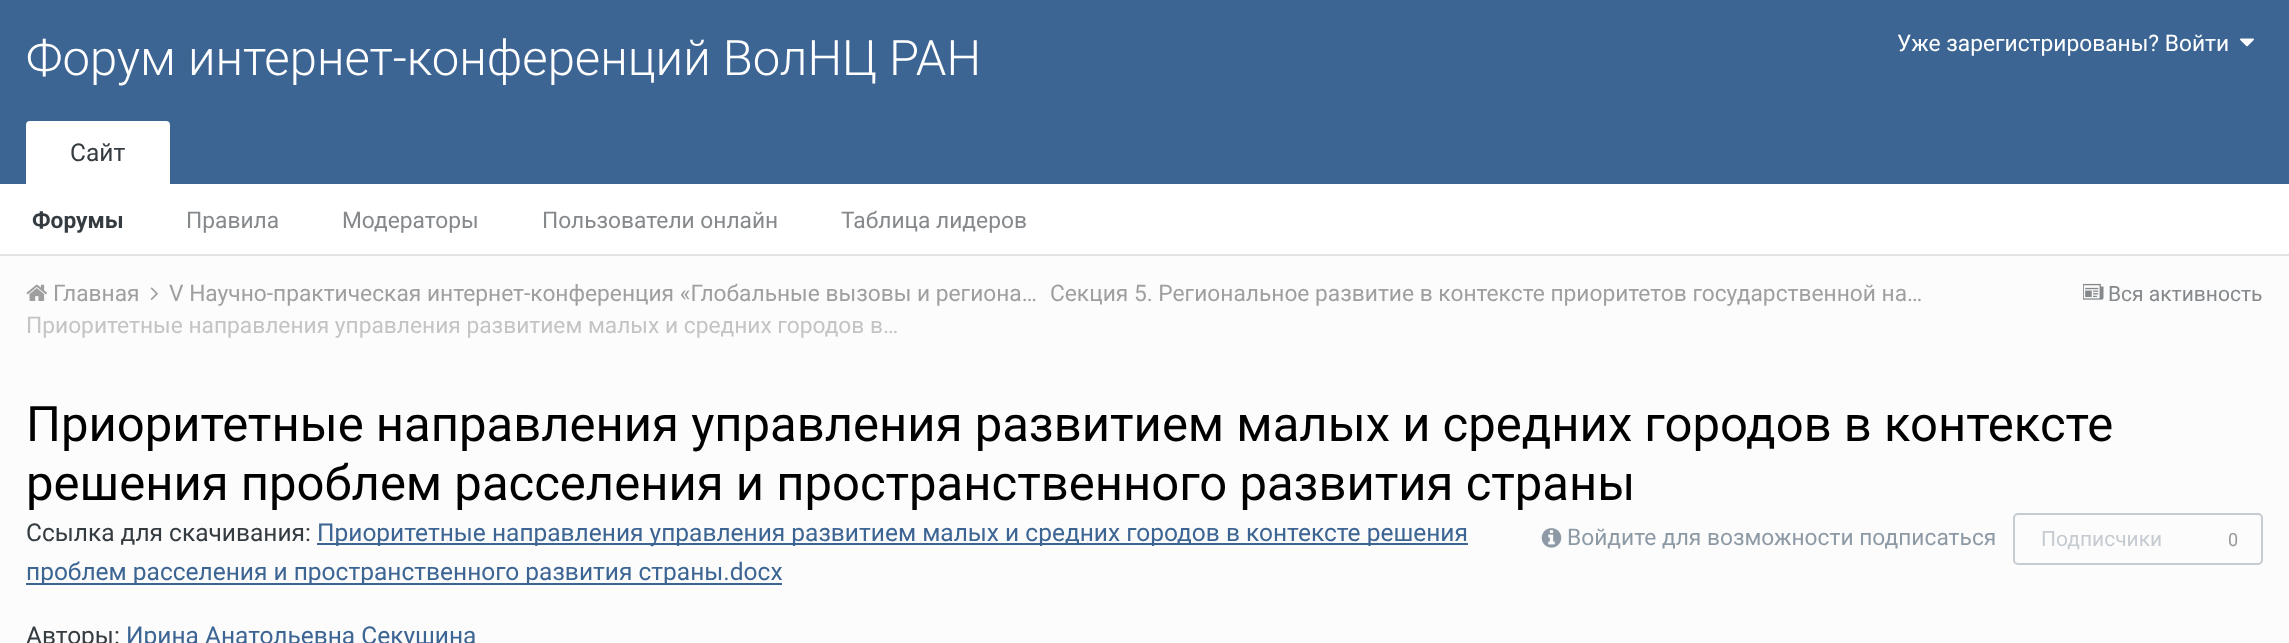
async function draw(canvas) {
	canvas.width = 2289;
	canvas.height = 643;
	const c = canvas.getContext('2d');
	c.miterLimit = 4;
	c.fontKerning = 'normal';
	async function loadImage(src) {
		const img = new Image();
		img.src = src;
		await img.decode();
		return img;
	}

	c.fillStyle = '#fcfcfc';
	c.fillRect(0, 0, 2289, 643);
	c.fillStyle = '#e3e3e3';
	c.fillRect(0, 254, 2289, 2);
	c.fillStyle = '#3d6594';
	c.fillRect(0, 0, 2289, 184);
	c.font = '300 49px Roboto';
	c.fillStyle = '#fff';
	c.fillText('Форум интернет-конференций ВолНЦ РАН', 26, 75);
	c.font = '22.75px Roboto';
	c.fillText('Уже зарегистрированы? Войти', 1897, 51);
	c.drawImage(await loadImage('img1.png'), 2240, 38, 14, 9);
	c.fillRect(0, 184, 2289, 70);
	c.beginPath();
	c.roundRect(26, 121, 144, 63, [4, 4, 0, 0]);
	c.fill();
	c.font = '24.5px Roboto';
	c.fillStyle = '#353c41';
	c.fillText('Сайт', 70, 161);
	c.font = 'bold 22.75px Roboto';
	c.fillText('Форумы', 32, 228);
	c.font = '22.75px Roboto';
	c.fillStyle = '#85898c';
	for (const [text, x, y] of [
		['Правила', 186, 228],
		['Модераторы', 342, 228],
		['Пользователи онлайн', 542, 228],
		['Таблица лидеров', 841, 228],
	]) {
		c.fillText(text, x, y);
	}
	c.drawImage(await loadImage('img2.png'), 26, 284, 21, 17);
	c.fillStyle = '#9f9f9f';
	c.fillText('Главная', 53, 301);
	c.drawImage(await loadImage('img3.png'), 150, 287, 8, 13);
	c.fillText('V Научно-практическая интернет-конференция «Глобальные вызовы и региона…', 169, 301);
	c.fillText('Секция 5. Региональное развитие в контексте приоритетов государственной на…', 1050, 301);
	c.fillStyle = '#c4c4c4';
	c.fillText('Приоритетные направления управления развитием малых и средних городов в…', 26, 333);
	c.drawImage(await loadImage('img4.png'), 2083, 283, 21, 17);
	c.font = '21px Roboto';
	c.fillStyle = '#85898c';
	c.fillText('Вся активность', 2108, 301);
	c.font = '49px Roboto';
	c.fillStyle = '#000';
	c.fillText('Приоритетные направления управления развитием малых и средних городов в контексте', 26, 441);
	c.fillText('решения проблем расселения и пространственного развития страны', 26, 500);
	c.font = '24.5px Roboto';
	c.fillStyle = '#353c41';
	c.fillText('Ссылка для скачивания:', 26, 541);
	c.fillStyle = '#3d6594';
	c.fillRect(317, 543, 1151, 2);
	c.fillText('Приоритетные направления управления развитием малых и средних городов в контексте решения', 317, 541);
	c.fillRect(26, 583, 756, 2);
	c.fillText('проблем расселения и пространственного развития страны.docx', 26, 580);
	c.fillStyle = '#353c41';
	c.fillText('Авторы:', 26, 644);
	c.fillStyle = '#3d6594';
	c.fillText('Ирина Анатольевна Секушина', 126, 644);
	c.drawImage(await loadImage('img5.png'), 1541, 528, 21, 20);
	c.font = '22.75px Roboto';
	c.fillStyle = '#8d9aa6';
	c.fillText('Войдите для возможности подписаться', 1567, 545);
	c.beginPath();
	c.roundRect(2014, 514, 248, 50, 4);
	c.strokeStyle = '#c5cbd1';
	c.lineWidth = 2;
	c.stroke();
	c.font = '21px Roboto';
	c.fillStyle = '#c5cbd1';
	c.fillText('Подписчики', 2041, 546);
	c.font = '18px Roboto';
	c.fillStyle = '#989898';
	c.fillText('0', 2228, 546);
}

draw(document.querySelector('canvas'));
